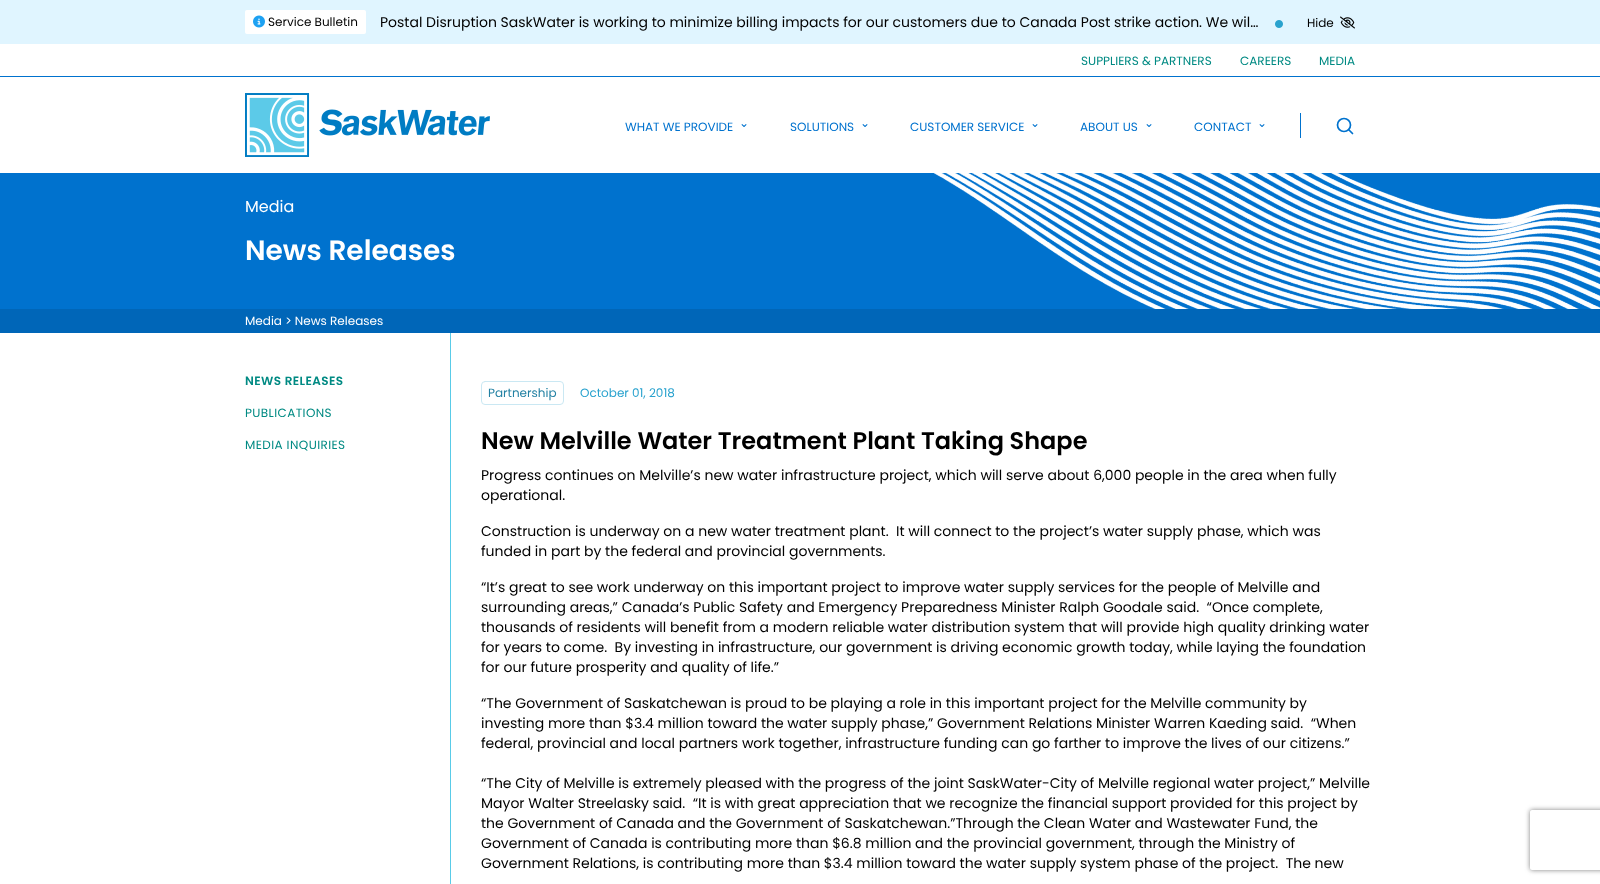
async function draw(canvas) {
	canvas.width = 1600;
	canvas.height = 884;
	const c = canvas.getContext('2d');
	c.miterLimit = 4;
	c.fontKerning = 'normal';
	async function loadImage(src) {
		const img = new Image();
		img.src = src;
		await img.decode();
		return img;
	}

	c.fillStyle = '#fff';
	c.fillRect(0, 0, 1600, 884);
	c.fillStyle = '#e0f5ff';
	c.fillRect(0, 0, 1600, 44);
	c.fillStyle = '#fff';
	c.beginPath();
	c.roundRect(245, 10, 121, 24, 2);
	c.fill();
	c.drawImage(await loadImage('img1.png'), 253, 15, 12, 13);
	c.font = '12px Poppins';
	c.fillStyle = '#000';
	c.fillText('Service Bulletin', 268, 26);
	c.font = '14px Poppins';
	c.fillText('Postal Disruption SaskWater is working to minimize billing impacts for our customers due to Canada Post strike action. We wil…', 380, 27);
	c.drawImage(await loadImage('img2.png'), 1275, 20, 8, 8);
	c.font = '12px Poppins';
	c.fillText('Hide', 1307, 27);
	c.drawImage(await loadImage('img3.png'), 1340, 16, 15, 13);
	c.fillStyle = '#0072ce';
	c.fillRect(0, 76, 1600, 1);
	c.fillStyle = '#008a83';
	for (const [text, x, y] of [
		['SUPPLIERS & PARTNERS', 1081, 65],
		['CAREERS', 1240, 65],
		['MEDIA', 1319, 65],
	]) {
		c.fillText(text, x, y);
	}
	c.drawImage(await loadImage('img4.png'), 245, 93, 245, 64);
	c.fillStyle = '#0072ce';
	c.fillText('WHAT WE PROVIDE', 625, 131);
	c.font = '12px DejaVu Sans';
	c.fillText('⌄', 739, 127);
	c.font = '12px Poppins';
	c.fillText('SOLUTIONS', 790, 131);
	c.font = '12px DejaVu Sans';
	c.fillText('⌄', 860, 127);
	c.font = '12px Poppins';
	c.fillText('CUSTOMER SERVICE', 910, 131);
	c.font = '12px DejaVu Sans';
	c.fillText('⌄', 1030, 127);
	c.font = '12px Poppins';
	c.fillText('ABOUT US', 1080, 131);
	c.font = '12px DejaVu Sans';
	c.fillText('⌄', 1144, 127);
	c.font = '12px Poppins';
	c.fillText('CONTACT', 1194, 131);
	c.font = '12px DejaVu Sans';
	c.fillText('⌄', 1257, 127);
	c.fillRect(1300, 113, 1, 25);
	c.beginPath();
	c.arc(1344, 125, 6.5, 0, 2 * Math.PI);
	c.strokeStyle = '#0072ce';
	c.lineWidth = 1.7;
	c.stroke();
	c.beginPath();
	c.moveTo(1352.5, 133.5);
	c.lineTo(1349, 130);
	c.lineCap = 'round';
	c.lineJoin = 'round';
	c.stroke();
	c.fillRect(0, 173, 1600, 136);
	c.drawImage(await loadImage('img5.png'), 933, 173, 667, 136);
	c.font = '16px Poppins';
	c.fillStyle = '#fff';
	c.fillText('Media', 245, 212);
	c.font = '600 28px Poppins';
	c.fillText('News Releases', 245, 260);
	c.fillStyle = '#0066b8';
	c.fillRect(0, 309, 1600, 24);
	c.font = '12px Poppins';
	c.fillStyle = '#fff';
	c.fillText('Media > News Releases', 245, 325);
	c.letterSpacing = '0.4px';
	c.font = '600 12px Poppins';
	c.fillStyle = '#008a83';
	c.fillText('NEWS RELEASES', 245, 385);
	c.font = '12px Poppins';
	c.fillText('PUBLICATIONS', 245, 417);
	c.fillText('MEDIA INQUIRIES', 245, 449);
	c.fillStyle = '#59cbe8';
	c.fillRect(450, 333, 1, 551);
	c.beginPath();
	c.roundRect(481.5, 381.5, 82, 23, 3.5);
	c.strokeStyle = '#cae8f3';
	c.lineWidth = 1;
	c.lineJoin = 'miter';
	c.stroke();
	c.letterSpacing = '0px';
	c.fillStyle = '#2381a3';
	c.fillText('Partnership', 488, 397);
	c.fillStyle = '#29a2ce';
	c.fillText('October 01, 2018', 580, 397);
	c.font = '600 24px Poppins';
	c.fillStyle = '#000';
	c.fillText('New Melville Water Treatment Plant Taking Shape', 481, 449);
	c.font = '14px Poppins';
	for (const [text, x, y] of [
		['Progress continues on Melville’s new water infrastructure project, which will serve about 6,000 people in the area when fully', 481, 480],
		['operational.', 481, 500],
		['Construction is underway on a new water treatment plant.  It will connect to the project’s water supply phase, which was', 481, 536],
		['funded in part by the federal and provincial governments.', 481, 556],
		['“It’s great to see work underway on this important project to improve water supply services for the people of Melville and', 481, 592],
		['surrounding areas,” Canada’s Public Safety and Emergency Preparedness Minister Ralph Goodale said.  “Once complete,', 481, 612],
		['thousands of residents will benefit from a modern reliable water distribution system that will provide high quality drinking water', 481, 632],
		['for years to come.  By investing in infrastructure, our government is driving economic growth today, while laying the foundation', 481, 652],
		['for our future prosperity and quality of life.”', 481, 672],
		['“The Government of Saskatchewan is proud to be playing a role in this important project for the Melville community by', 481, 708],
		['investing more than $3.4 million toward the water supply phase,” Government Relations Minister Warren Kaeding said.  “When', 481, 728],
		['federal, provincial and local partners work together, infrastructure funding can go farther to improve the lives of our citizens.”', 481, 748],
		['“The City of Melville is extremely pleased with the progress of the joint SaskWater-City of Melville regional water project,” Melville', 481, 788],
		['Mayor Walter Streelasky said.  “It is with great appreciation that we recognize the financial support provided for this project by', 481, 808],
		['the Government of Canada and the Government of Saskatchewan.”Through the Clean Water and Wastewater Fund, the', 481, 828],
		['Government of Canada is contributing more than $6.8 million and the provincial government, through the Ministry of', 481, 848],
		['Government Relations, is contributing more than $3.4 million toward the water supply system phase of the project.  The new', 481, 868],
	]) {
		c.fillText(text, x, y);
	}
	c.save();
	c.beginPath();
	c.moveTo(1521, 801);
	c.lineTo(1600, 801);
	c.lineTo(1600, 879);
	c.lineTo(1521, 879);
	c.closePath();
	c.moveTo(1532, 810);
	c.lineTo(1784, 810);
	c.bezierCurveTo(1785, 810, 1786, 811, 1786, 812);
	c.lineTo(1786, 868);
	c.bezierCurveTo(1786, 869, 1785, 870, 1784, 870);
	c.lineTo(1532, 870);
	c.bezierCurveTo(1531, 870, 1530, 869, 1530, 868);
	c.lineTo(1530, 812);
	c.bezierCurveTo(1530, 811, 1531, 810, 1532, 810);
	c.closePath();
	c.clip('evenodd');
	c.fillStyle = '#808080';
	c.filter = 'blur(2.5px)';
	c.beginPath();
	c.roundRect(1530, 810, 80, 60, 2);
	c.fill();
	c.filter = 'none';
	c.restore();
}

draw(document.querySelector('canvas'));
